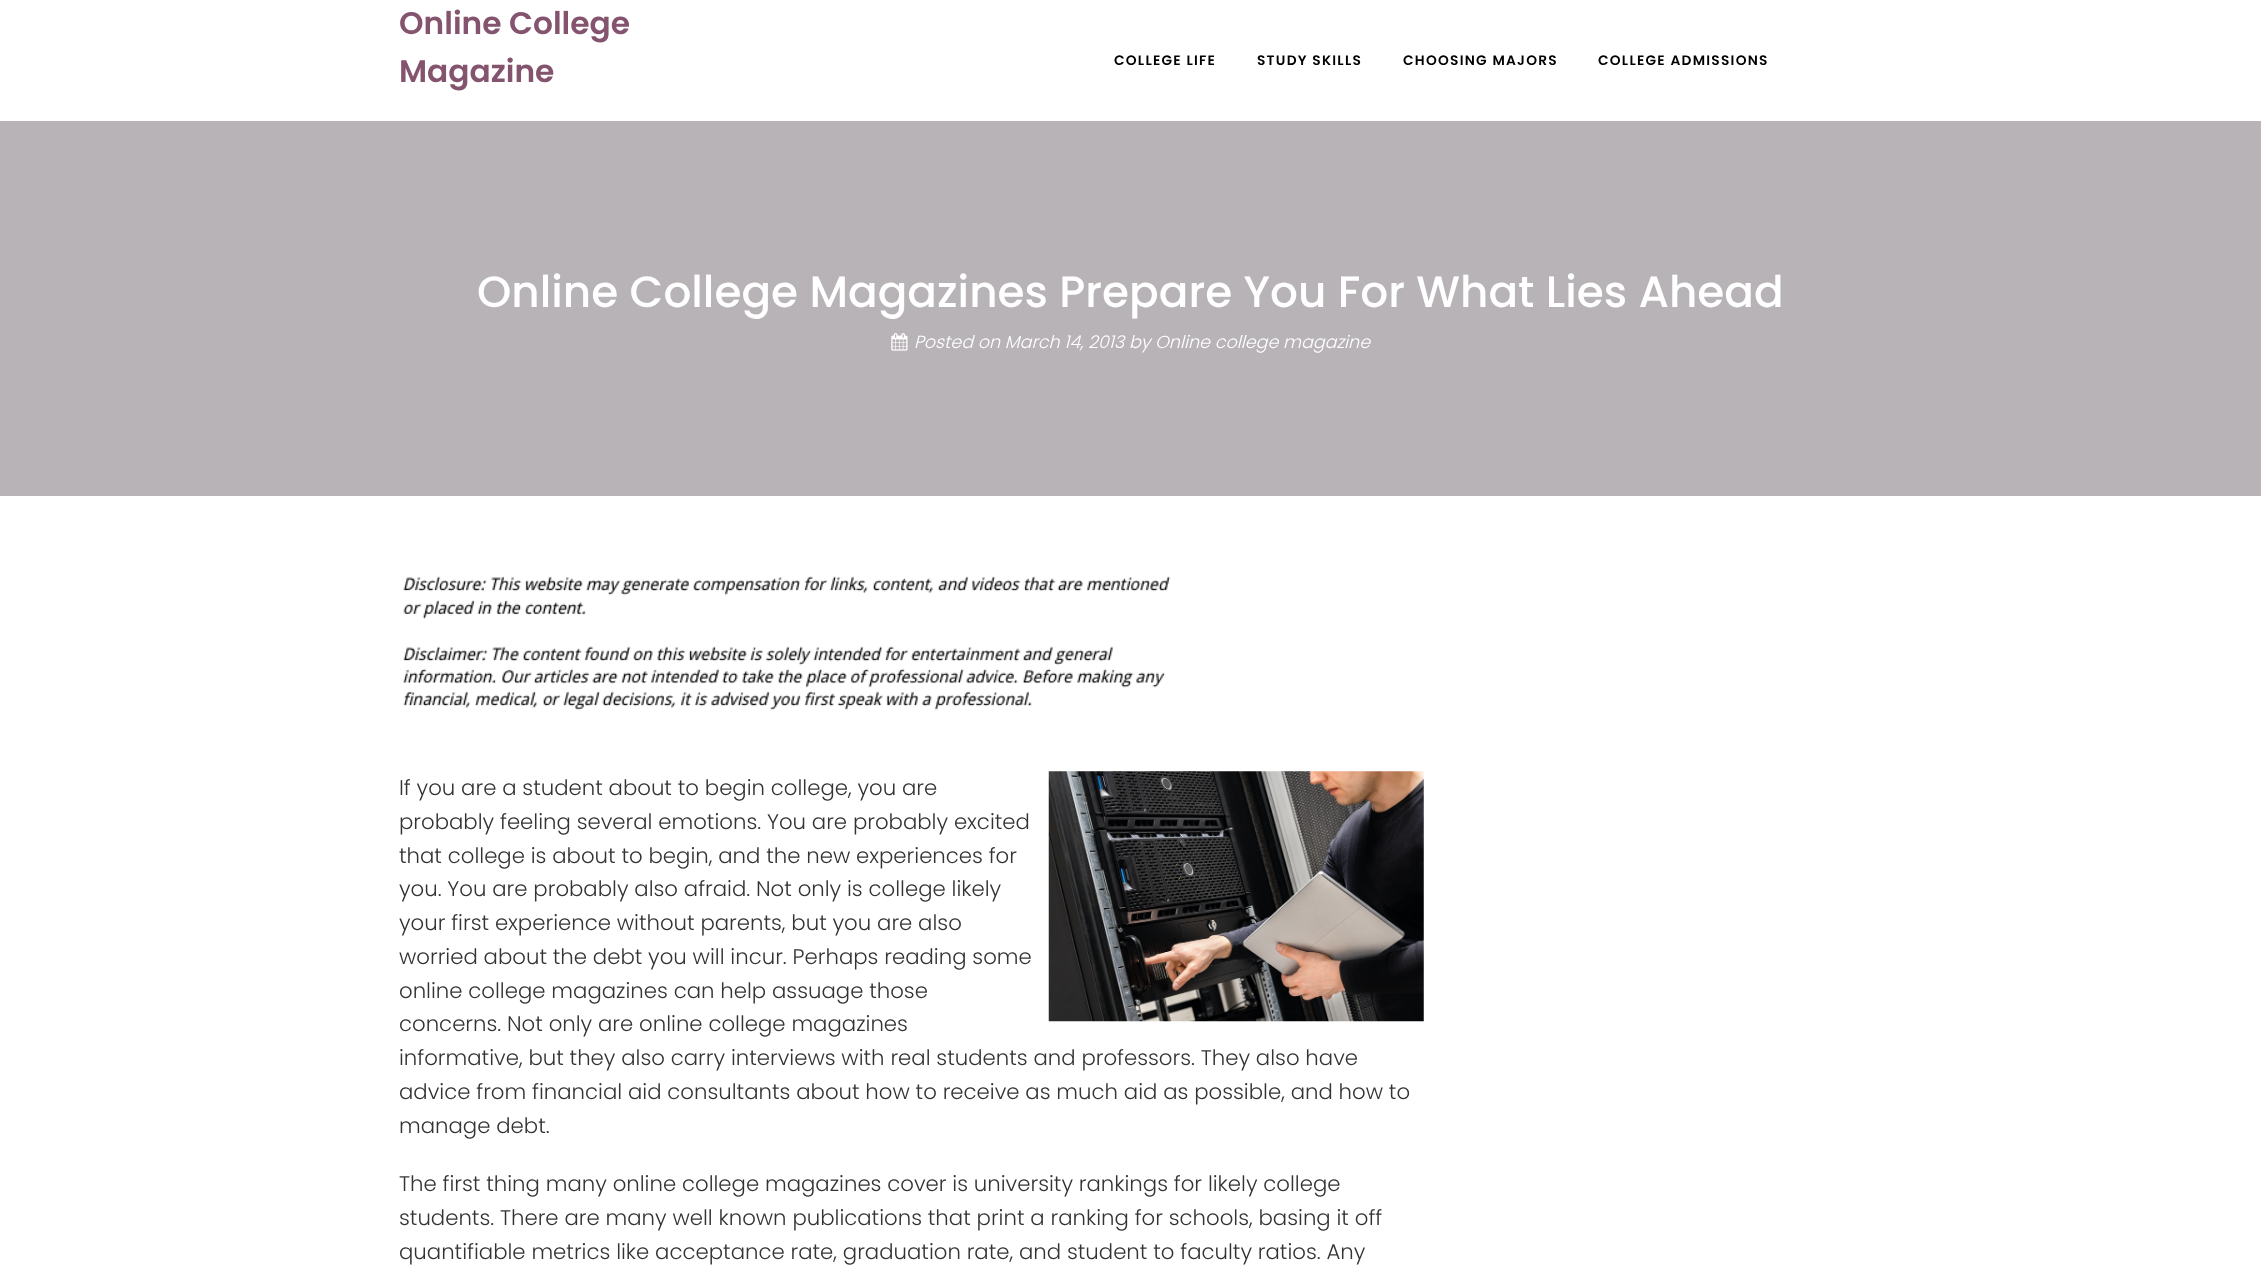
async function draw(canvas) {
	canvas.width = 2261;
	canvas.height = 1266;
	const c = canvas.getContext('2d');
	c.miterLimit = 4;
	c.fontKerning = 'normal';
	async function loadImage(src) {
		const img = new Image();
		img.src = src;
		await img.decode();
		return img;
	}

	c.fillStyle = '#fff';
	c.fillRect(0, 0, 2261, 1266);
	c.font = '600 31.25px Poppins';
	c.fillStyle = '#84546f';
	c.fillText('Online College', 399, 34);
	c.fillText('Magazine', 399, 82);
	c.letterSpacing = '1.25px';
	c.font = '600 13.75px Poppins';
	c.fillStyle = '#000';
	for (const [text, x, y] of [
		['COLLEGE LIFE', 1114, 65],
		['STUDY SKILLS', 1257, 65],
		['CHOOSING MAJORS', 1403, 65],
		['COLLEGE ADMISSIONS', 1598, 65],
	]) {
		c.fillText(text, x, y);
	}
	c.fillStyle = '#b8b3b6';
	c.fillRect(0, 121, 2261, 375);
	c.letterSpacing = '0px';
	c.font = '500 43.75px Poppins';
	c.fillStyle = '#fff';
	c.fillText('Online College Magazines Prepare You For What Lies Ahead', 477, 307);
	c.drawImage(await loadImage('img1.png'), 891, 333, 17, 18);
	c.font = 'italic 300 17.5px Poppins';
	c.fillText('Posted on March 14, 2013 by Online college magazine', 914, 348);
	c.drawImage(await loadImage('img2.png'), 403, 576, 768, 135);
	c.drawImage(await loadImage('img3.png'), 1048, 771, 376, 251);
	c.font = '300 21.25px Poppins';
	c.fillStyle = '#333';
	for (const [text, x, y] of [
		['If you are a student about to begin college, you are', 399, 795],
		['probably feeling several emotions. You are probably excited', 399, 829],
		['that college is about to begin, and the new experiences for', 399, 863],
		['you. You are probably also afraid. Not only is college likely', 399, 896],
		['your first experience without parents, but you are also', 399, 930],
		['worried about the debt you will incur. Perhaps reading some', 399, 964],
		['online college magazines can help assuage those', 399, 998],
		['concerns. Not only are online college magazines', 399, 1031],
		['informative, but they also carry interviews with real students and professors. They also have', 399, 1065],
		['advice from financial aid consultants about how to receive as much aid as possible, and how to', 399, 1099],
		['manage debt.', 399, 1133],
		['The first thing many online college magazines cover is university rankings for likely college', 399, 1191],
		['students. There are many well known publications that print a ranking for schools, basing it off', 399, 1225],
		['quantifiable metrics like acceptance rate, graduation rate, and student to faculty ratios. Any', 399, 1259],
	]) {
		c.fillText(text, x, y);
	}
}

draw(document.querySelector('canvas'));
